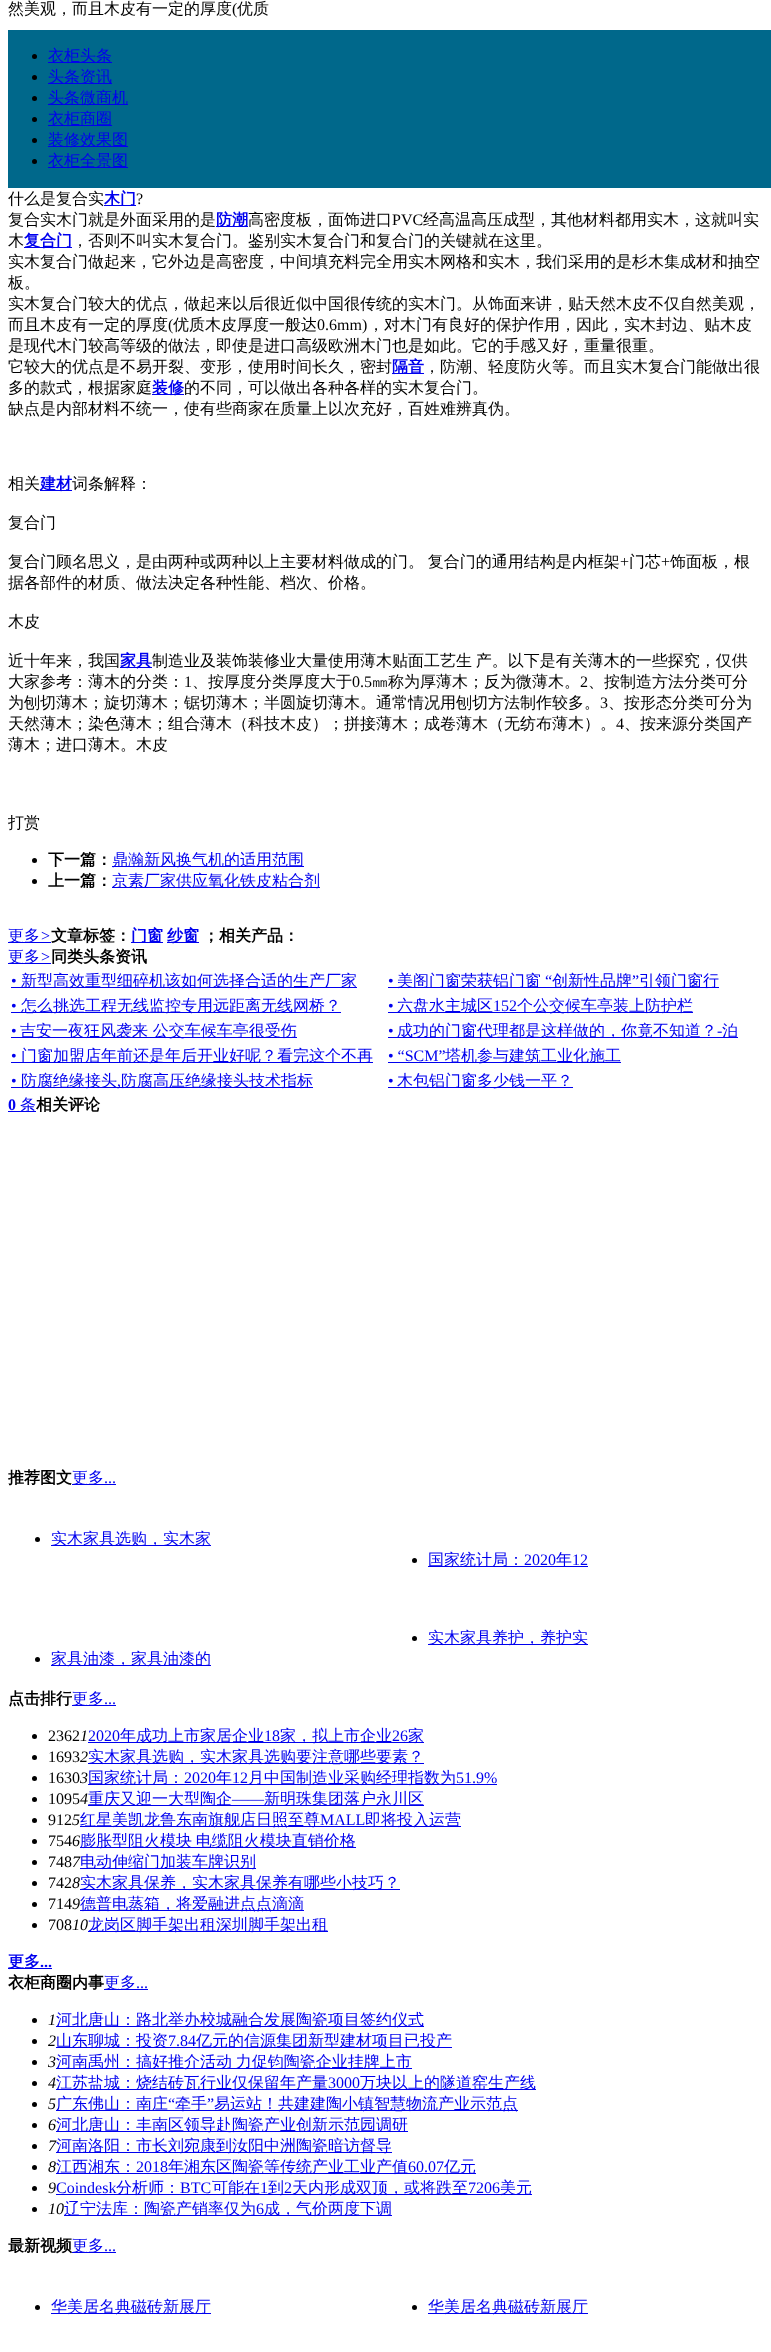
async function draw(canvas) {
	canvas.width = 771;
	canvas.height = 2352;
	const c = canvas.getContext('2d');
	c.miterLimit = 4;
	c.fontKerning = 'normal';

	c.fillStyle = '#fff';
	c.fillRect(0, 0, 771, 2352);
	c.font = '500 16px WenQuanYi Zen Hei';
	c.fillStyle = '#000';
	c.fillText('然美观，而且木皮有一定的厚度', 8, 14);
	c.font = '16px Liberation Serif';
	c.fillText('(', 232, 14);
	c.font = '500 16px WenQuanYi Zen Hei';
	c.fillText('优质', 237, 14);
	c.fillText('什么是复合实', 8, 204);
	c.fillStyle = '#00e';
	c.fillRect(104, 205, 32, 1);
	c.font = 'bold 16px WenQuanYi Zen Hei';
	c.fillText('木门', 104, 204);
	c.font = '16px Liberation Serif';
	c.fillStyle = '#000';
	c.fillText('?', 136, 204);
	c.font = '500 16px WenQuanYi Zen Hei';
	c.fillText('复合实木门就是外面采用的是', 8, 225);
	c.fillStyle = '#00e';
	c.fillRect(216, 226, 32, 1);
	c.font = 'bold 16px WenQuanYi Zen Hei';
	c.fillText('防潮', 216, 225);
	c.font = '500 16px WenQuanYi Zen Hei';
	c.fillStyle = '#000';
	c.fillText('高密度板，面饰进口', 248, 225);
	c.font = '16px Liberation Serif';
	c.fillText('PVC', 392, 225);
	c.font = '500 16px WenQuanYi Zen Hei';
	c.fillText('经高温高压成型，其他材料都用实木，这就叫实', 423, 225);
	c.fillText('木', 8, 246);
	c.fillStyle = '#00e';
	c.fillRect(24, 247, 48, 1);
	c.font = 'bold 16px WenQuanYi Zen Hei';
	c.fillText('复合门', 24, 246);
	c.font = '500 16px WenQuanYi Zen Hei';
	c.fillStyle = '#000';
	for (const [text, x, y] of [
		['，否则不叫实木复合门。鉴别实木复合门和复合门的关键就在这里。', 72, 246],
		['实木复合门做起来，它外边是高密度，中间填充料完全用实木网格和实木，我们采用的是杉木集成材和抽空', 8, 267],
		['板。', 8, 288],
		['实木复合门较大的优点，做起来以后很近似中国很传统的实木门。从饰面来讲，贴天然木皮不仅自然美观，', 8, 309],
		['而且木皮有一定的厚度', 8, 330],
	]) {
		c.fillText(text, x, y);
	}
	c.font = '16px Liberation Serif';
	c.fillText('(', 168, 330);
	c.font = '500 16px WenQuanYi Zen Hei';
	c.fillText('优质木皮厚度一般达', 173, 330);
	c.font = '16px Liberation Serif';
	c.fillText('0.6mm)', 317, 330);
	c.font = '500 16px WenQuanYi Zen Hei';
	for (const [text, x, y] of [
		['，对木门有良好的保护作用，因此，实木封边、贴木皮', 368, 330],
		['是现代木门较高等级的做法，即使是进口高级欧洲木门也是如此。它的手感又好，重量很重。', 8, 351],
		['它较大的优点是不易开裂、变形，使用时间长久，密封', 8, 372],
	]) {
		c.fillText(text, x, y);
	}
	c.fillStyle = '#00e';
	c.fillRect(392, 373, 32, 1);
	c.font = 'bold 16px WenQuanYi Zen Hei';
	c.fillText('隔音', 392, 372);
	c.font = '500 16px WenQuanYi Zen Hei';
	c.fillStyle = '#000';
	c.fillText('，防潮、轻度防火等。而且实木复合门能做出很', 424, 372);
	c.fillText('多的款式，根据家庭', 8, 393);
	c.fillStyle = '#00e';
	c.fillRect(152, 394, 32, 1);
	c.font = 'bold 16px WenQuanYi Zen Hei';
	c.fillText('装修', 152, 393);
	c.font = '500 16px WenQuanYi Zen Hei';
	c.fillStyle = '#000';
	for (const [text, x, y] of [
		['的不同，可以做出各种各样的实木复合门。', 184, 393],
		['缺点是内部材料不统一，使有些商家在质量上以次充好，百姓难辨真伪。', 8, 414],
		['相关', 8, 489],
	]) {
		c.fillText(text, x, y);
	}
	c.fillStyle = '#00e';
	c.fillRect(40, 490, 32, 1);
	c.font = 'bold 16px WenQuanYi Zen Hei';
	c.fillText('建材', 40, 489);
	c.font = '500 16px WenQuanYi Zen Hei';
	c.fillStyle = '#000';
	c.fillText('词条解释：', 72, 489);
	c.fillText('复合门', 8, 528);
	c.wordSpacing = '-1px';
	c.fillText('复合门顾名思义，是由两种或两种以上主要材料做成的门。 复合门的通用结构是内框架', 8, 567);
	c.wordSpacing = '0px';
	c.font = '16px Liberation Serif';
	c.fillText('+', 620, 567);
	c.font = '500 16px WenQuanYi Zen Hei';
	c.fillText('门芯', 629, 567);
	c.font = '16px Liberation Serif';
	c.fillText('+', 661, 567);
	c.font = '500 16px WenQuanYi Zen Hei';
	for (const [text, x, y] of [
		['饰面板，根', 670, 567],
		['据各部件的材质、做法决定各种性能、档次、价格。', 8, 588],
		['木皮', 8, 627],
		['近十年来，我国', 8, 666],
	]) {
		c.fillText(text, x, y);
	}
	c.fillStyle = '#00e';
	c.fillRect(120, 667, 32, 1);
	c.font = 'bold 16px WenQuanYi Zen Hei';
	c.fillText('家具', 120, 666);
	c.wordSpacing = '-1px';
	c.font = '500 16px WenQuanYi Zen Hei';
	c.fillStyle = '#000';
	c.fillText('制造业及装饰装修业大量使用薄木贴面工艺生 产。以下是有关薄木的一些探究，仅供', 152, 666);
	c.wordSpacing = '0px';
	c.fillText('大家参考：薄木的分类：', 8, 687);
	c.font = '16px Liberation Serif';
	c.fillText('1', 184, 687);
	c.font = '500 16px WenQuanYi Zen Hei';
	c.fillText('、按厚度分类厚度大于', 192, 687);
	c.font = '16px Liberation Serif';
	c.fillText('0.5', 352, 687);
	c.font = '500 16px WenQuanYi Zen Hei';
	c.fillText('㎜称为厚薄木；反为微薄木。', 372, 687);
	c.font = '16px Liberation Serif';
	c.fillText('2', 580, 687);
	c.font = '500 16px WenQuanYi Zen Hei';
	c.fillText('、按制造方法分类可分', 588, 687);
	c.fillText('为刨切薄木；旋切薄木；锯切薄木；半圆旋切薄木。通常情况用刨切方法制作较多。', 8, 708);
	c.font = '16px Liberation Serif';
	c.fillText('3', 600, 708);
	c.font = '500 16px WenQuanYi Zen Hei';
	c.fillText('、按形态分类可分为', 608, 708);
	c.fillText('天然薄木；染色薄木；组合薄木（科技木皮）；拼接薄木；成卷薄木（无纺布薄木）。', 8, 729);
	c.font = '16px Liberation Serif';
	c.fillText('4', 616, 729);
	c.font = '500 16px WenQuanYi Zen Hei';
	for (const [text, x, y] of [
		['、按来源分类国产', 624, 729],
		['薄木；进口薄木。木皮', 8, 750],
		['打赏', 8, 828],
	]) {
		c.fillText(text, x, y);
	}
	c.beginPath();
	c.arc(34.5, 860.5, 2.5, 0, 2 * Math.PI);
	c.fill();
	c.font = 'bold 16px WenQuanYi Zen Hei';
	c.fillText('下一篇：', 48, 865);
	c.fillStyle = '#00e';
	c.fillRect(112, 866, 192, 1);
	c.font = '500 16px WenQuanYi Zen Hei';
	c.fillText('鼎瀚新风换气机的适用范围', 112, 865);
	c.fillStyle = '#000';
	c.beginPath();
	c.arc(34.5, 881.5, 2.5, 0, 2 * Math.PI);
	c.fill();
	c.font = 'bold 16px WenQuanYi Zen Hei';
	c.fillText('上一篇：', 48, 886);
	c.fillStyle = '#00e';
	c.fillRect(112, 887, 208, 1);
	c.font = '500 16px WenQuanYi Zen Hei';
	c.fillText('京素厂家供应氧化铁皮粘合剂', 112, 886);
	c.fillRect(8, 942, 43, 1);
	c.fillText('更多', 8, 941);
	c.font = 'italic 16px Liberation Serif';
	c.fillText('>', 40, 941);
	c.font = 'bold 16px WenQuanYi Zen Hei';
	c.fillStyle = '#000';
	c.fillText('文章标签：', 51, 941);
	c.fillStyle = '#00e';
	c.fillRect(131, 942, 32, 1);
	c.fillText('门窗', 131, 941);
	c.fillRect(167, 942, 32, 1);
	c.fillText('纱窗', 167, 941);
	c.fillStyle = '#000';
	c.fillText('；相关产品：', 203, 941);
	c.fillStyle = '#00e';
	c.fillRect(8, 963, 43, 1);
	c.font = '500 16px WenQuanYi Zen Hei';
	c.fillText('更多', 8, 962);
	c.font = 'italic 16px Liberation Serif';
	c.fillText('>', 40, 962);
	c.font = 'bold 16px WenQuanYi Zen Hei';
	c.fillStyle = '#000';
	c.fillText('同类头条资讯', 51, 962);
	c.font = '16px Liberation Serif';
	c.fillStyle = '#00e';
	c.fillText('•', 11, 986);
	c.fillRect(11, 987, 346, 1);
	c.font = '500 16px WenQuanYi Zen Hei';
	c.fillText('新型高效重型细碎机该如何选择合适的生产厂家', 21, 986);
	c.fillRect(388, 987, 331, 1);
	c.fillText('美阁门窗荣获铝门窗', 397, 986);
	c.font = '16px Liberation Serif';
	c.fillText('“', 545, 986);
	c.font = '500 16px WenQuanYi Zen Hei';
	c.fillText('创新性品牌', 552, 986);
	c.font = '16px Liberation Serif';
	c.fillText('”', 632, 986);
	c.font = '500 16px WenQuanYi Zen Hei';
	c.fillText('引领门窗行', 639, 986);
	c.font = '16px Liberation Serif';
	c.fillText('•', 388, 986);
	c.fillText('•', 11, 1011);
	c.fillRect(11, 1012, 330, 1);
	c.font = '500 16px WenQuanYi Zen Hei';
	c.fillText('怎么挑选工程无线监控专用远距离无线网桥？', 21, 1011);
	c.font = '16px Liberation Serif';
	c.fillText('•', 388, 1011);
	c.fillRect(388, 1012, 305, 1);
	c.font = '500 16px WenQuanYi Zen Hei';
	c.fillText('六盘水主城区', 397, 1011);
	c.font = '16px Liberation Serif';
	c.fillText('152', 493, 1011);
	c.font = '500 16px WenQuanYi Zen Hei';
	c.fillText('个公交候车亭装上防护栏', 517, 1011);
	c.font = '16px Liberation Serif';
	c.fillText('•', 11, 1036);
	c.fillRect(11, 1037, 286, 1);
	c.font = '500 16px WenQuanYi Zen Hei';
	c.fillText('吉安一夜狂风袭来 公交车候车亭很受伤', 20, 1036);
	c.font = '16px Liberation Serif';
	c.fillText('•', 388, 1036);
	c.fillRect(388, 1037, 350, 1);
	c.font = '500 16px WenQuanYi Zen Hei';
	c.fillText('成功的门窗代理都是这样做的，你竟不知道？', 397, 1036);
	c.font = '16px Liberation Serif';
	c.fillText('-', 717, 1036);
	c.font = '500 16px WenQuanYi Zen Hei';
	c.fillText('泊', 722, 1036);
	c.font = '16px Liberation Serif';
	c.fillText('•', 11, 1061);
	c.fillRect(11, 1062, 362, 1);
	c.font = '500 16px WenQuanYi Zen Hei';
	c.fillText('门窗加盟店年前还是年后开业好呢？看完这个不再', 21, 1061);
	c.font = '16px Liberation Serif';
	c.fillText('• “SCM”', 388, 1061);
	c.fillRect(388, 1062, 233, 1);
	c.font = '500 16px WenQuanYi Zen Hei';
	c.fillText('塔机参与建筑工业化施工', 445, 1061);
	c.font = '16px Liberation Serif';
	c.fillText('•', 11, 1086);
	c.fillRect(11, 1087, 302, 1);
	c.font = '500 16px WenQuanYi Zen Hei';
	c.fillText('防腐绝缘接头', 21, 1086);
	c.fillText('防腐高压绝缘接头技术指标', 121, 1086);
	c.font = '16px Liberation Serif';
	c.fillText(',', 117, 1086);
	c.fillText('•', 388, 1086);
	c.fillRect(388, 1087, 185, 1);
	c.font = '500 16px WenQuanYi Zen Hei';
	c.fillText('木包铝门窗多少钱一平？', 397, 1086);
	c.font = 'bold 16px Liberation Serif';
	c.fillText('0', 8, 1110);
	c.fillRect(8, 1111, 28, 1);
	c.font = '500 16px WenQuanYi Zen Hei';
	c.fillText('条', 20, 1110);
	c.font = 'bold 16px WenQuanYi Zen Hei';
	c.fillStyle = '#000';
	c.fillText('相关评论', 36, 1110);
	c.fillText('推荐图文', 8, 1483);
	c.fillStyle = '#00e';
	c.fillRect(72, 1484, 44, 1);
	c.font = '500 16px WenQuanYi Zen Hei';
	c.fillText('更多', 72, 1483);
	c.font = '16px Liberation Serif';
	c.fillText('...', 104, 1483);
	c.fillStyle = '#000';
	c.beginPath();
	c.arc(37.5, 1539.5, 2.5, 0, 2 * Math.PI);
	c.fill();
	c.fillStyle = '#00e';
	c.fillRect(51, 1545, 160, 1);
	c.font = '500 16px WenQuanYi Zen Hei';
	c.fillText('实木家具选购，实木家', 51, 1544);
	c.fillStyle = '#000';
	c.beginPath();
	c.arc(414.5, 1560.5, 2.5, 0, 2 * Math.PI);
	c.fill();
	c.fillStyle = '#00e';
	c.fillRect(428, 1566, 160, 1);
	c.fillText('国家统计局：', 428, 1565);
	c.font = '16px Liberation Serif';
	c.fillText('2020', 524, 1565);
	c.font = '500 16px WenQuanYi Zen Hei';
	c.fillText('年', 556, 1565);
	c.font = '16px Liberation Serif';
	c.fillText('12', 572, 1565);
	c.fillStyle = '#000';
	c.beginPath();
	c.arc(414.5, 1638.5, 2.5, 0, 2 * Math.PI);
	c.fill();
	c.fillStyle = '#00e';
	c.fillRect(428, 1644, 160, 1);
	c.font = '500 16px WenQuanYi Zen Hei';
	c.fillText('实木家具养护，养护实', 428, 1643);
	c.fillStyle = '#000';
	c.beginPath();
	c.arc(37.5, 1659.5, 2.5, 0, 2 * Math.PI);
	c.fill();
	c.fillStyle = '#00e';
	c.fillRect(51, 1665, 160, 1);
	c.fillText('家具油漆，家具油漆的', 51, 1664);
	c.font = 'bold 16px WenQuanYi Zen Hei';
	c.fillStyle = '#000';
	c.fillText('点击排行', 8, 1704);
	c.fillStyle = '#00e';
	c.fillRect(72, 1705, 44, 1);
	c.font = '500 16px WenQuanYi Zen Hei';
	c.fillText('更多', 72, 1704);
	c.font = '16px Liberation Serif';
	c.fillText('...', 104, 1704);
	c.fillStyle = '#000';
	c.beginPath();
	c.arc(34.5, 1736.5, 2.5, 0, 2 * Math.PI);
	c.fill();
	c.fillText('2362', 48, 1741);
	c.font = 'italic 16px Liberation Serif';
	c.fillText('1', 80, 1741);
	c.font = '16px Liberation Serif';
	c.fillStyle = '#00e';
	c.fillText('2020', 88, 1741);
	c.fillRect(88, 1742, 336, 1);
	c.font = '500 16px WenQuanYi Zen Hei';
	c.fillText('年成功上市家居企业', 120, 1741);
	c.font = '16px Liberation Serif';
	c.fillText('18', 264, 1741);
	c.font = '500 16px WenQuanYi Zen Hei';
	c.fillText('家，拟上市企业', 280, 1741);
	c.font = '16px Liberation Serif';
	c.fillText('26', 392, 1741);
	c.font = '500 16px WenQuanYi Zen Hei';
	c.fillText('家', 408, 1741);
	c.fillStyle = '#000';
	c.beginPath();
	c.arc(34.5, 1757.5, 2.5, 0, 2 * Math.PI);
	c.fill();
	c.font = '16px Liberation Serif';
	c.fillText('1693', 48, 1762);
	c.font = 'italic 16px Liberation Serif';
	c.fillText('2', 80, 1762);
	c.fillStyle = '#00e';
	c.fillRect(88, 1763, 336, 1);
	c.font = '500 16px WenQuanYi Zen Hei';
	c.fillText('实木家具选购，实木家具选购要注意哪些要素？', 88, 1762);
	c.fillStyle = '#000';
	c.beginPath();
	c.arc(34.5, 1778.5, 2.5, 0, 2 * Math.PI);
	c.fill();
	c.font = '16px Liberation Serif';
	c.fillText('1630', 48, 1783);
	c.font = 'italic 16px Liberation Serif';
	c.fillText('3', 80, 1783);
	c.fillStyle = '#00e';
	c.fillRect(88, 1784, 409, 1);
	c.font = '500 16px WenQuanYi Zen Hei';
	c.fillText('国家统计局：', 88, 1783);
	c.font = '16px Liberation Serif';
	c.fillText('2020', 184, 1783);
	c.font = '500 16px WenQuanYi Zen Hei';
	c.fillText('年', 216, 1783);
	c.font = '16px Liberation Serif';
	c.fillText('12', 232, 1783);
	c.font = '500 16px WenQuanYi Zen Hei';
	c.fillText('月中国制造业采购经理指数为', 248, 1783);
	c.font = '16px Liberation Serif';
	c.fillText('51.9%', 456, 1783);
	c.fillStyle = '#000';
	c.beginPath();
	c.arc(34.5, 1799.5, 2.5, 0, 2 * Math.PI);
	c.fill();
	c.fillText('1095', 48, 1804);
	c.font = 'italic 16px Liberation Serif';
	c.fillText('4', 80, 1804);
	c.fillStyle = '#00e';
	c.fillRect(88, 1805, 336, 1);
	c.font = '500 16px WenQuanYi Zen Hei';
	c.fillText('重庆又迎一大型陶企', 88, 1804);
	c.font = '16px Liberation Serif';
	c.fillText('——', 232, 1804);
	c.font = '500 16px WenQuanYi Zen Hei';
	c.fillText('新明珠集团落户永川区', 264, 1804);
	c.fillStyle = '#000';
	c.beginPath();
	c.arc(34.5, 1820.5, 2.5, 0, 2 * Math.PI);
	c.fill();
	c.font = '16px Liberation Serif';
	c.fillText('912', 48, 1825);
	c.font = 'italic 16px Liberation Serif';
	c.fillText('5', 72, 1825);
	c.fillStyle = '#00e';
	c.fillRect(80, 1826, 381, 1);
	c.font = '500 16px WenQuanYi Zen Hei';
	c.fillText('红星美凯龙鲁东南旗舰店日照至尊', 80, 1825);
	c.font = '16px Liberation Serif';
	c.fillText('MALL', 320, 1825);
	c.font = '500 16px WenQuanYi Zen Hei';
	c.fillText('即将投入运营', 365, 1825);
	c.fillStyle = '#000';
	c.beginPath();
	c.arc(34.5, 1841.5, 2.5, 0, 2 * Math.PI);
	c.fill();
	c.font = '16px Liberation Serif';
	c.fillText('754', 48, 1846);
	c.font = 'italic 16px Liberation Serif';
	c.fillText('6', 72, 1846);
	c.fillStyle = '#00e';
	c.fillRect(80, 1847, 276, 1);
	c.wordSpacing = '-1px';
	c.font = '500 16px WenQuanYi Zen Hei';
	c.fillText('膨胀型阻火模块 电缆阻火模块直销价格', 80, 1846);
	c.fillStyle = '#000';
	c.beginPath();
	c.arc(34.5, 1862.5, 2.5, 0, 2 * Math.PI);
	c.fill();
	c.wordSpacing = '0px';
	c.font = '16px Liberation Serif';
	c.fillText('748', 48, 1867);
	c.font = 'italic 16px Liberation Serif';
	c.fillText('7', 72, 1867);
	c.fillStyle = '#00e';
	c.fillRect(80, 1868, 176, 1);
	c.font = '500 16px WenQuanYi Zen Hei';
	c.fillText('电动伸缩门加装车牌识别', 80, 1867);
	c.fillStyle = '#000';
	c.beginPath();
	c.arc(34.5, 1883.5, 2.5, 0, 2 * Math.PI);
	c.fill();
	c.font = '16px Liberation Serif';
	c.fillText('742', 48, 1888);
	c.font = 'italic 16px Liberation Serif';
	c.fillText('8', 72, 1888);
	c.fillStyle = '#00e';
	c.fillRect(80, 1889, 320, 1);
	c.font = '500 16px WenQuanYi Zen Hei';
	c.fillText('实木家具保养，实木家具保养有哪些小技巧？', 80, 1888);
	c.fillStyle = '#000';
	c.beginPath();
	c.arc(34.5, 1904.5, 2.5, 0, 2 * Math.PI);
	c.fill();
	c.font = '16px Liberation Serif';
	c.fillText('714', 48, 1909);
	c.font = 'italic 16px Liberation Serif';
	c.fillText('9', 72, 1909);
	c.fillStyle = '#00e';
	c.fillRect(80, 1910, 224, 1);
	c.font = '500 16px WenQuanYi Zen Hei';
	c.fillText('德普电蒸箱，将爱融进点点滴滴', 80, 1909);
	c.fillStyle = '#000';
	c.beginPath();
	c.arc(34.5, 1925.5, 2.5, 0, 2 * Math.PI);
	c.fill();
	c.font = '16px Liberation Serif';
	c.fillText('708', 48, 1930);
	c.font = 'italic 16px Liberation Serif';
	c.fillText('10', 72, 1930);
	c.fillStyle = '#00e';
	c.fillRect(88, 1931, 240, 1);
	c.font = '500 16px WenQuanYi Zen Hei';
	c.fillText('龙岗区脚手架出租深圳脚手架出租', 88, 1930);
	c.fillRect(8, 1968, 44, 1);
	c.font = 'bold 16px WenQuanYi Zen Hei';
	c.fillText('更多', 8, 1967);
	c.font = 'bold 16px Liberation Serif';
	c.fillText('...', 40, 1967);
	c.font = 'bold 16px WenQuanYi Zen Hei';
	c.fillStyle = '#000';
	c.fillText('衣柜商圈内事', 8, 1988);
	c.fillStyle = '#00e';
	c.fillRect(104, 1989, 44, 1);
	c.font = '500 16px WenQuanYi Zen Hei';
	c.fillText('更多', 104, 1988);
	c.font = '16px Liberation Serif';
	c.fillText('...', 136, 1988);
	c.fillStyle = '#000';
	c.beginPath();
	c.arc(34.5, 2020.5, 2.5, 0, 2 * Math.PI);
	c.fill();
	c.font = 'italic 16px Liberation Serif';
	c.fillText('1', 48, 2025);
	c.fillStyle = '#00e';
	c.fillRect(56, 2026, 368, 1);
	c.font = '500 16px WenQuanYi Zen Hei';
	c.fillText('河北唐山：路北举办校城融合发展陶瓷项目签约仪式', 56, 2025);
	c.fillStyle = '#000';
	c.beginPath();
	c.arc(34.5, 2041.5, 2.5, 0, 2 * Math.PI);
	c.fill();
	c.font = 'italic 16px Liberation Serif';
	c.fillText('2', 48, 2046);
	c.fillStyle = '#00e';
	c.fillRect(56, 2047, 396, 1);
	c.font = '500 16px WenQuanYi Zen Hei';
	c.fillText('山东聊城：投资', 56, 2046);
	c.font = '16px Liberation Serif';
	c.fillText('7.84', 168, 2046);
	c.font = '500 16px WenQuanYi Zen Hei';
	c.fillText('亿元的信源集团新型建材项目已投产', 196, 2046);
	c.fillStyle = '#000';
	c.beginPath();
	c.arc(34.5, 2062.5, 2.5, 0, 2 * Math.PI);
	c.fill();
	c.font = 'italic 16px Liberation Serif';
	c.fillText('3', 48, 2067);
	c.fillStyle = '#00e';
	c.fillRect(56, 2068, 356, 1);
	c.wordSpacing = '-1px';
	c.font = '500 16px WenQuanYi Zen Hei';
	c.fillText('河南禹州：搞好推介活动 力促钧陶瓷企业挂牌上市', 56, 2067);
	c.fillStyle = '#000';
	c.beginPath();
	c.arc(34.5, 2083.5, 2.5, 0, 2 * Math.PI);
	c.fill();
	c.wordSpacing = '0px';
	c.font = 'italic 16px Liberation Serif';
	c.fillText('4', 48, 2088);
	c.fillStyle = '#00e';
	c.fillRect(56, 2089, 480, 1);
	c.font = '500 16px WenQuanYi Zen Hei';
	c.fillText('江苏盐城：烧结砖瓦行业仅保留年产量', 56, 2088);
	c.font = '16px Liberation Serif';
	c.fillText('3000', 328, 2088);
	c.font = '500 16px WenQuanYi Zen Hei';
	c.fillText('万块以上的隧道窑生产线', 360, 2088);
	c.font = 'italic 16px Liberation Serif';
	c.fillStyle = '#000';
	c.fillText('5', 48, 2109);
	c.fillStyle = '#00e';
	c.fillRect(56, 2110, 462, 1);
	c.font = '500 16px WenQuanYi Zen Hei';
	c.fillText('广东佛山：南庄', 56, 2109);
	c.font = '16px Liberation Serif';
	c.fillText('“', 168, 2109);
	c.font = '500 16px WenQuanYi Zen Hei';
	c.fillText('牵手', 175, 2109);
	c.font = '16px Liberation Serif';
	c.fillText('”', 207, 2109);
	c.font = '500 16px WenQuanYi Zen Hei';
	c.fillText('易运站！共建建陶小镇智慧物流产业示范点', 214, 2109);
	c.fillStyle = '#000';
	c.beginPath();
	c.arc(34.5, 2104.5, 2.5, 0, 2 * Math.PI);
	c.fill();
	c.beginPath();
	c.arc(34.5, 2125.5, 2.5, 0, 2 * Math.PI);
	c.fill();
	c.font = 'italic 16px Liberation Serif';
	c.fillText('6', 48, 2130);
	c.fillStyle = '#00e';
	c.fillRect(56, 2131, 352, 1);
	c.font = '500 16px WenQuanYi Zen Hei';
	c.fillText('河北唐山：丰南区领导赴陶瓷产业创新示范园调研', 56, 2130);
	c.fillStyle = '#000';
	c.beginPath();
	c.arc(34.5, 2146.5, 2.5, 0, 2 * Math.PI);
	c.fill();
	c.font = 'italic 16px Liberation Serif';
	c.fillText('7', 48, 2151);
	c.fillStyle = '#00e';
	c.fillRect(56, 2152, 336, 1);
	c.font = '500 16px WenQuanYi Zen Hei';
	c.fillText('河南洛阳：市长刘宛康到汝阳中洲陶瓷暗访督导', 56, 2151);
	c.fillStyle = '#000';
	c.beginPath();
	c.arc(34.5, 2167.5, 2.5, 0, 2 * Math.PI);
	c.fill();
	c.font = 'italic 16px Liberation Serif';
	c.fillText('8', 48, 2172);
	c.fillStyle = '#00e';
	c.fillRect(56, 2173, 420, 1);
	c.font = '500 16px WenQuanYi Zen Hei';
	c.fillText('江西湘东：', 56, 2172);
	c.font = '16px Liberation Serif';
	c.fillText('2018', 136, 2172);
	c.font = '500 16px WenQuanYi Zen Hei';
	c.fillText('年湘东区陶瓷等传统产业工业产值', 168, 2172);
	c.font = '16px Liberation Serif';
	c.fillText('60.07', 408, 2172);
	c.font = '500 16px WenQuanYi Zen Hei';
	c.fillText('亿元', 444, 2172);
	c.fillStyle = '#000';
	c.beginPath();
	c.arc(34.5, 2188.5, 2.5, 0, 2 * Math.PI);
	c.fill();
	c.font = 'italic 16px Liberation Serif';
	c.fillText('9', 48, 2193);
	c.font = '16px Liberation Serif';
	c.fillStyle = '#00e';
	c.fillText('Coindesk', 56, 2193);
	c.fillRect(56, 2194, 476, 1);
	c.font = '500 16px WenQuanYi Zen Hei';
	c.fillText('分析师：', 116, 2193);
	c.font = '16px Liberation Serif';
	c.fillText('BTC', 180, 2193);
	c.font = '500 16px WenQuanYi Zen Hei';
	c.fillText('可能在', 212, 2193);
	c.font = '16px Liberation Serif';
	c.fillText('1', 260, 2193);
	c.font = '500 16px WenQuanYi Zen Hei';
	c.fillText('到', 268, 2193);
	c.font = '16px Liberation Serif';
	c.fillText('2', 284, 2193);
	c.font = '500 16px WenQuanYi Zen Hei';
	c.fillText('天内形成双顶，或将跌至', 292, 2193);
	c.font = '16px Liberation Serif';
	c.fillText('7206', 468, 2193);
	c.font = '500 16px WenQuanYi Zen Hei';
	c.fillText('美元', 500, 2193);
	c.fillStyle = '#000';
	c.beginPath();
	c.arc(34.5, 2209.5, 2.5, 0, 2 * Math.PI);
	c.fill();
	c.font = 'italic 16px Liberation Serif';
	c.fillText('10', 48, 2214);
	c.fillStyle = '#00e';
	c.fillRect(64, 2215, 328, 1);
	c.font = '500 16px WenQuanYi Zen Hei';
	c.fillText('辽宁法库：陶瓷产销率仅为', 64, 2214);
	c.font = '16px Liberation Serif';
	c.fillText('6', 256, 2214);
	c.font = '500 16px WenQuanYi Zen Hei';
	c.fillText('成，气价两度下调', 264, 2214);
	c.font = 'bold 16px WenQuanYi Zen Hei';
	c.fillStyle = '#000';
	c.fillText('最新视频', 8, 2251);
	c.fillStyle = '#00e';
	c.fillRect(72, 2252, 44, 1);
	c.font = '500 16px WenQuanYi Zen Hei';
	c.fillText('更多', 72, 2251);
	c.font = '16px Liberation Serif';
	c.fillText('...', 104, 2251);
	c.fillStyle = '#000';
	c.beginPath();
	c.arc(37.5, 2307.5, 2.5, 0, 2 * Math.PI);
	c.fill();
	c.fillStyle = '#00e';
	c.fillRect(51, 2313, 160, 1);
	c.font = '500 16px WenQuanYi Zen Hei';
	c.fillText('华美居名典磁砖新展厅', 51, 2312);
	c.fillStyle = '#000';
	c.beginPath();
	c.arc(414.5, 2307.5, 2.5, 0, 2 * Math.PI);
	c.fill();
	c.fillStyle = '#00e';
	c.fillRect(428, 2313, 160, 1);
	c.fillText('华美居名典磁砖新展厅', 428, 2312);
	c.fillStyle = '#00688b';
	c.fillRect(8, 30, 763, 158);
	c.fillStyle = '#000';
	c.beginPath();
	c.arc(34.5, 56.5, 2.5, 0, 2 * Math.PI);
	c.fill();
	c.fillStyle = '#00e';
	c.fillRect(48, 62, 64, 1);
	c.fillText('衣柜头条', 48, 61);
	c.fillStyle = '#000';
	c.beginPath();
	c.arc(34.5, 77.5, 2.5, 0, 2 * Math.PI);
	c.fill();
	c.fillStyle = '#00e';
	c.fillRect(48, 83, 64, 1);
	c.fillText('头条资讯', 48, 82);
	c.fillStyle = '#000';
	c.beginPath();
	c.arc(34.5, 98.5, 2.5, 0, 2 * Math.PI);
	c.fill();
	c.fillStyle = '#00e';
	c.fillRect(48, 104, 80, 1);
	c.fillText('头条微商机', 48, 103);
	c.fillStyle = '#000';
	c.beginPath();
	c.arc(34.5, 119.5, 2.5, 0, 2 * Math.PI);
	c.fill();
	c.fillStyle = '#00e';
	c.fillRect(48, 125, 64, 1);
	c.fillText('衣柜商圈', 48, 124);
	c.fillStyle = '#000';
	c.beginPath();
	c.arc(34.5, 140.5, 2.5, 0, 2 * Math.PI);
	c.fill();
	c.fillStyle = '#00e';
	c.fillRect(48, 146, 80, 1);
	c.fillText('装修效果图', 48, 145);
	c.fillStyle = '#000';
	c.beginPath();
	c.arc(34.5, 161.5, 2.5, 0, 2 * Math.PI);
	c.fill();
	c.fillStyle = '#00e';
	c.fillRect(48, 167, 80, 1);
	c.fillText('衣柜全景图', 48, 166);
}

draw(document.querySelector('canvas'));
